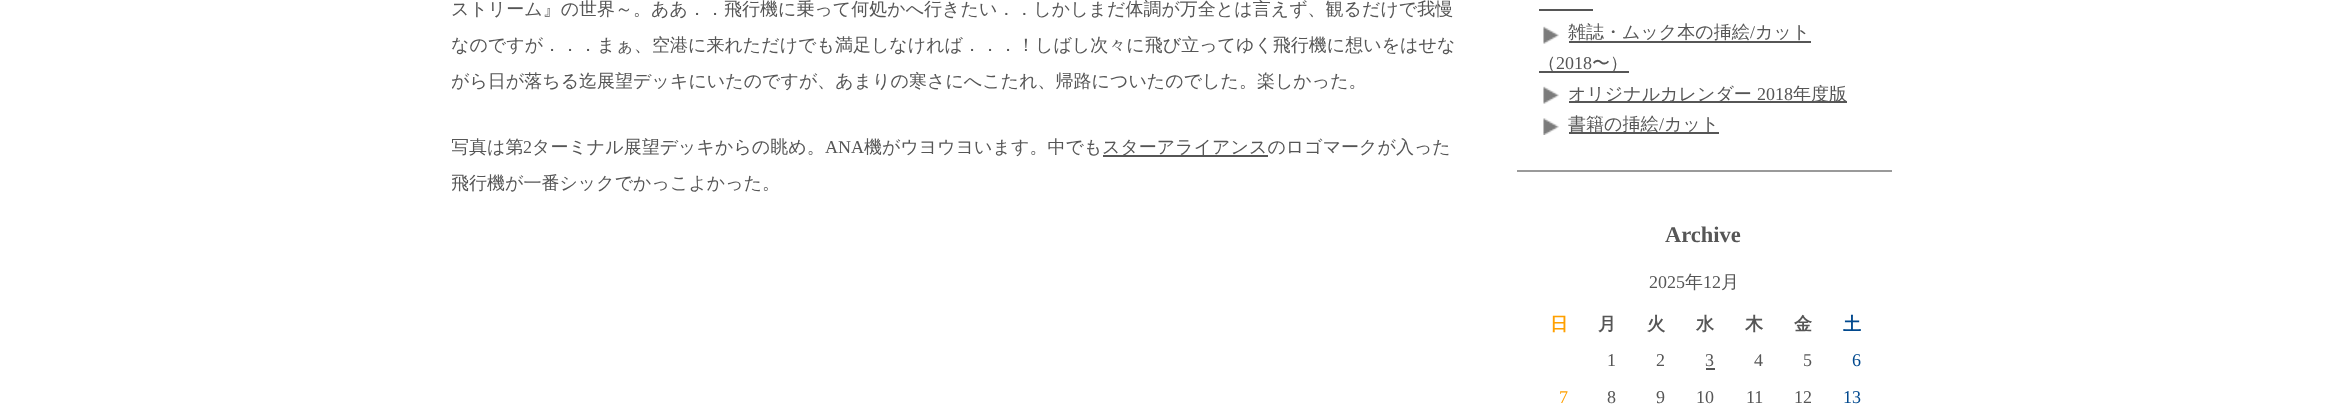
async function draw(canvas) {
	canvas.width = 2341;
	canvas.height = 416;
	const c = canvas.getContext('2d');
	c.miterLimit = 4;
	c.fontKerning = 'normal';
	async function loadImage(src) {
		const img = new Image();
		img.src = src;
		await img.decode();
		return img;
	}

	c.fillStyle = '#fff';
	c.fillRect(0, 0, 2341, 416);
	c.font = '500 18px WenQuanYi Zen Hei';
	c.fillStyle = '#565656';
	c.fillText('ストリーム』の世界～。ああ．．飛行機に乗って何処かへ行きたい．．しかしまだ体調が万全とは言えず、観るだけで我慢', 451, 15);
	c.fillText('なのですが．．．まぁ、空港に来れただけでも満足しなければ．．．！しばし次々に飛び立ってゆく飛行機に想いをはせな', 451, 51);
	c.save();
	c.beginPath();
	c.rect(452, 0, 1005, 231);
	c.clip();
	c.fillText('がら日が落ちる迄展望デッキにいたのですが、あまりの寒さにへこたれ、帰路についたのでした。楽しかった。', 451, 87);
	c.fillText('写真は第', 451, 153);
	c.restore();
	c.font = '18px Liberation Serif';
	c.fillText('2', 523, 153);
	c.font = '500 18px WenQuanYi Zen Hei';
	c.fillText('ターミナル展望デッキからの眺め。', 532, 153);
	c.font = '18px Liberation Serif';
	c.fillText('ANA', 825, 153);
	c.font = '500 18px WenQuanYi Zen Hei';
	c.fillText('機がウヨウヨいます。中でも', 864, 153);
	c.fillRect(1103, 155, 165, 2);
	c.fillText('スターアライアンスのロゴマークが入った', 1102, 153);
	c.save();
	c.beginPath();
	c.rect(452, 0, 1005, 231);
	c.clip();
	c.fillText('飛行機が一番シックでかっこよかった。', 451, 189);
	c.restore();
	c.fillStyle = '#9a9a9a';
	c.fillRect(1517, 170, 375, 2);
	c.fillStyle = '#565656';
	c.fillRect(1539, 9, 54, 2);
	c.drawImage(await loadImage('img1.png'), 1543, 26, 16, 18);
	c.fillText('雑誌・ムック本の挿絵', 1568, 38);
	c.font = '18px Liberation Serif';
	c.fillText('/', 1750, 38);
	c.font = '500 18px WenQuanYi Zen Hei';
	c.fillText('カット', 1755, 38);
	c.fillRect(1569, 41, 242, 2);
	c.fillRect(1539, 71, 90, 2);
	c.fillText('（', 1538, 69);
	c.font = '18px Liberation Serif';
	c.fillText('2018', 1556, 69);
	c.font = '500 18px WenQuanYi Zen Hei';
	c.fillText('〜）', 1592, 69);
	c.drawImage(await loadImage('img1.png'), 1543, 86, 16, 18);
	c.fillRect(1569, 101, 278, 2);
	c.fillText('オリジナルカレンダー', 1568, 100);
	c.font = '18px Liberation Serif';
	c.fillText('2018', 1757, 100);
	c.font = '500 18px WenQuanYi Zen Hei';
	c.fillText('年度版', 1793, 100);
	c.drawImage(await loadImage('img2.png'), 1543, 118, 16, 17);
	c.fillRect(1569, 132, 150, 2);
	c.fillText('書籍の挿絵', 1568, 130);
	c.font = '18px Liberation Serif';
	c.fillText('/', 1659, 130);
	c.font = '500 18px WenQuanYi Zen Hei';
	c.fillText('カット', 1664, 130);
	c.font = 'bold 22.5px Liberation Serif';
	c.fillText('Archive', 1665, 242);
	c.font = '18px Liberation Serif';
	c.fillText('2025', 1649, 288);
	c.font = '500 18px WenQuanYi Zen Hei';
	c.fillText('年', 1685, 288);
	c.font = '18px Liberation Serif';
	c.fillText('12', 1703, 288);
	c.font = '500 18px WenQuanYi Zen Hei';
	c.fillText('月', 1721, 288);
	c.font = 'bold 18px WenQuanYi Zen Hei';
	c.fillStyle = '#ffa000';
	c.fillText('日', 1550, 330);
	c.fillStyle = '#565656';
	for (const [text, x, y] of [
		['月', 1598, 330],
		['火', 1647, 330],
		['水', 1696, 330],
		['木', 1745, 330],
		['金', 1794, 330],
	]) {
		c.fillText(text, x, y);
	}
	c.fillStyle = '#01498e';
	c.fillText('土', 1843, 330);
	c.font = '18px Liberation Serif';
	c.fillStyle = '#565656';
	for (const [text, x, y] of [
		['1', 1607, 366],
		['2', 1656, 366],
		['3', 1705, 366],
	]) {
		c.fillText(text, x, y);
	}
	c.fillRect(1706, 368, 9, 2);
	c.fillText('4', 1754, 366);
	c.fillText('5', 1803, 366);
	c.fillStyle = '#01498e';
	c.fillText('6', 1852, 366);
	c.fillStyle = '#ffa000';
	c.fillText('7', 1559, 403);
	c.fillStyle = '#565656';
	for (const [text, x, y] of [
		['8', 1607, 403],
		['9', 1656, 403],
		['10', 1696, 403],
		['11', 1746, 403],
		['12', 1794, 403],
	]) {
		c.fillText(text, x, y);
	}
	c.fillStyle = '#01498e';
	c.fillText('13', 1843, 403);
}

draw(document.querySelector('canvas'));
